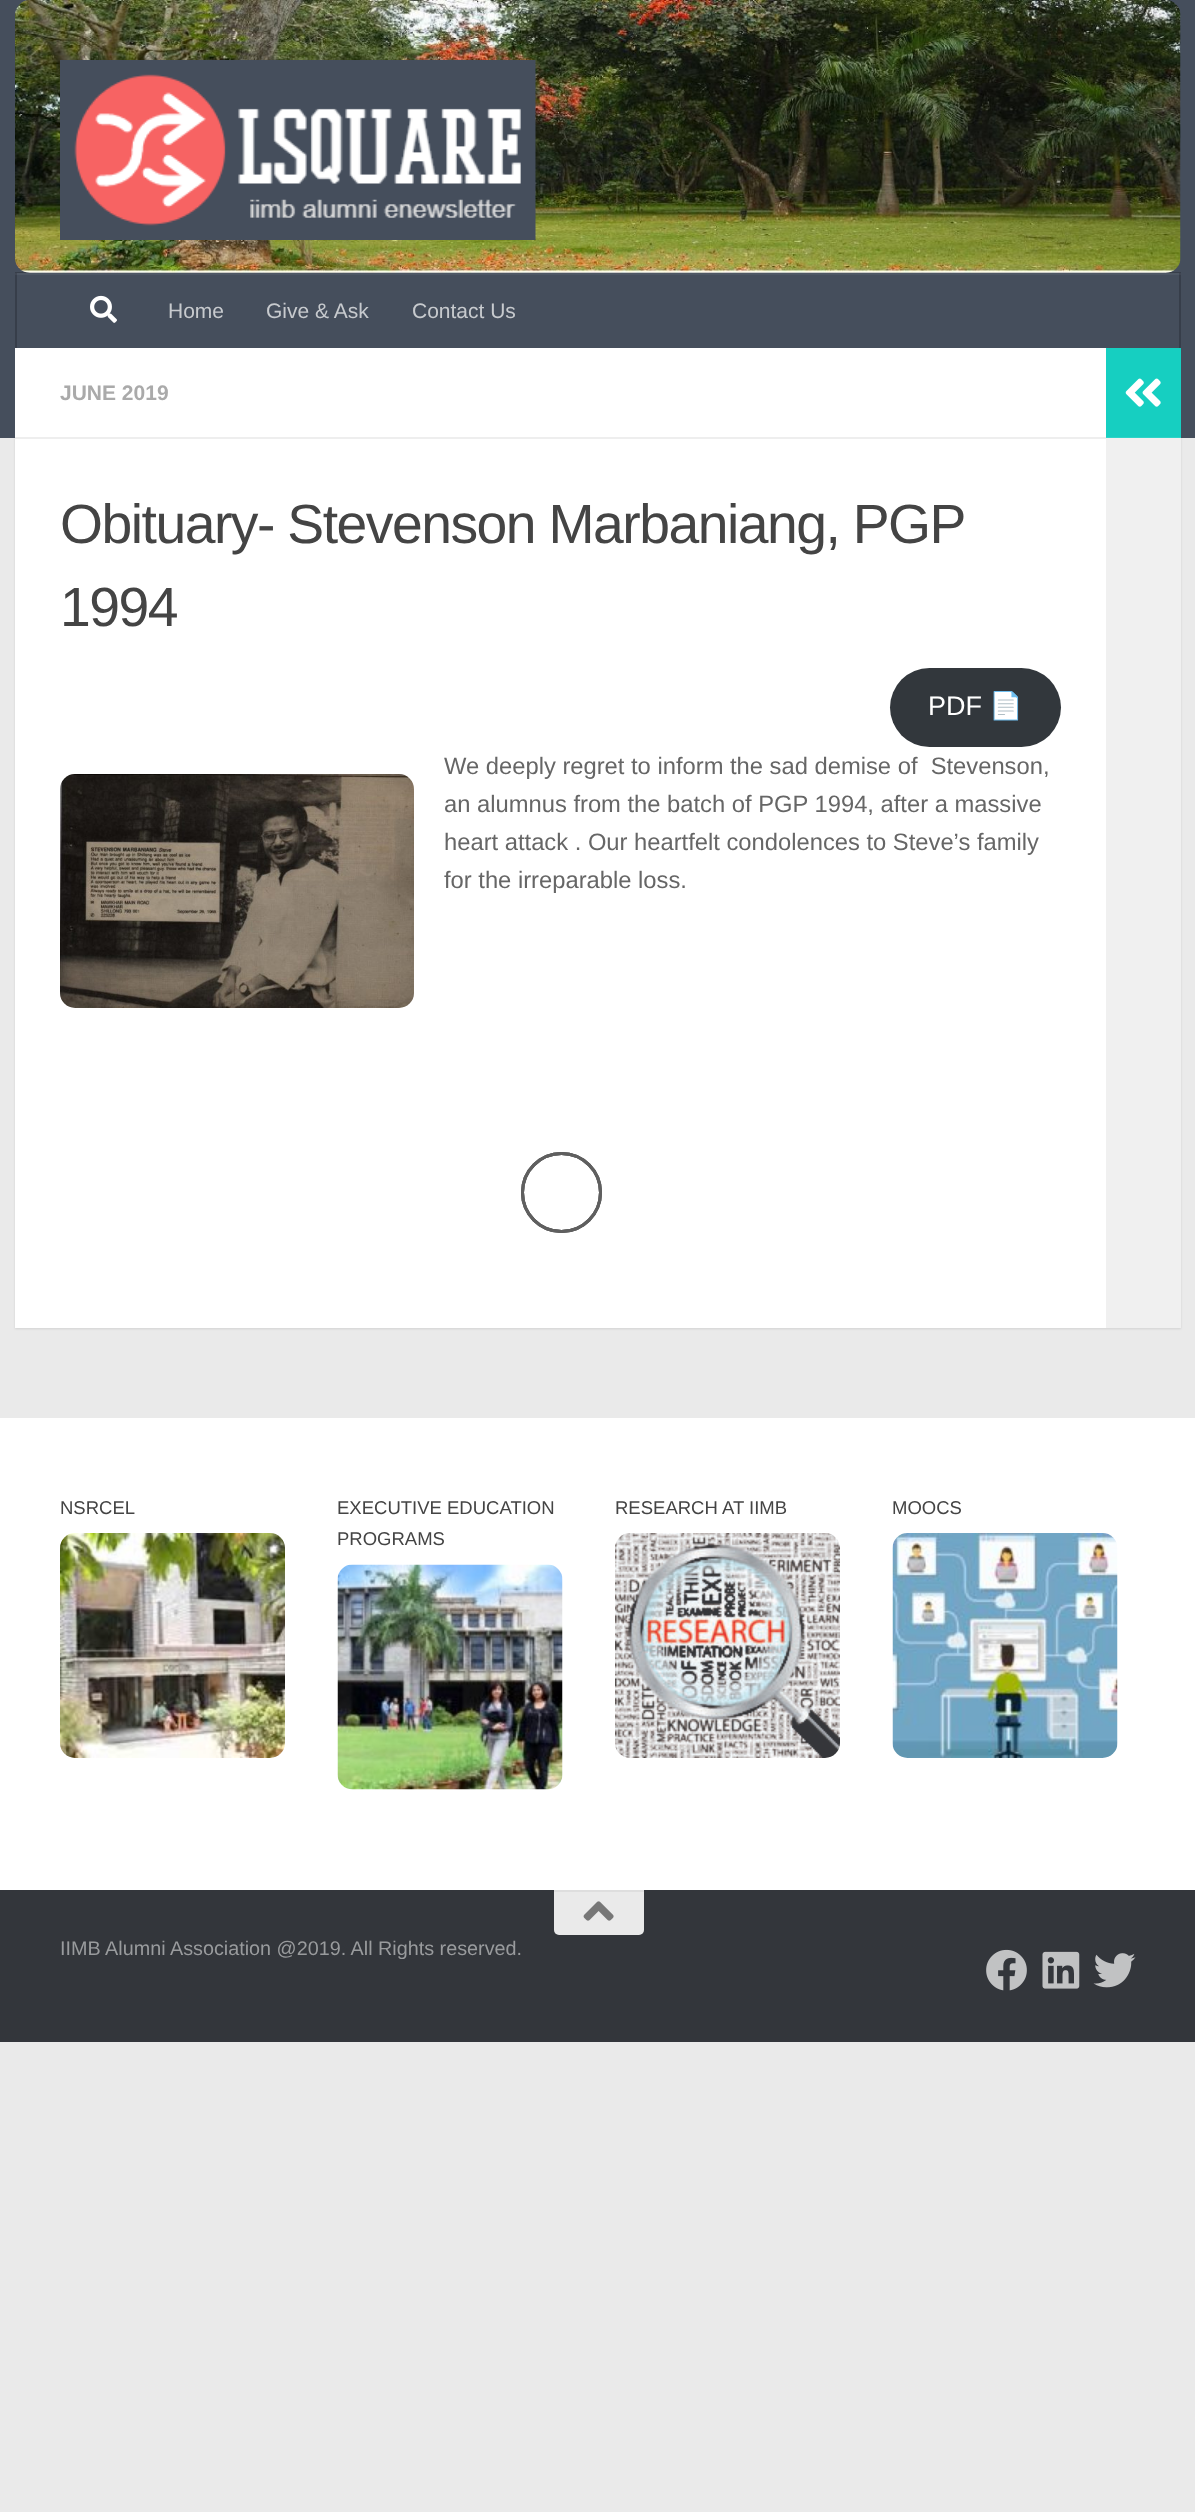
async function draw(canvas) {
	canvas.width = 1195;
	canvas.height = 2512;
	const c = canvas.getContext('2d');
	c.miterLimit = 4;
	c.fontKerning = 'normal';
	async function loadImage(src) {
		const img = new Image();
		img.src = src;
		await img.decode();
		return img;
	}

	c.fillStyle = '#eaeaea';
	c.fillRect(0, 0, 1195, 2512);
	c.fillStyle = '#0000001a';
	c.filter = 'blur(1px)';
	c.beginPath();
	c.rect(15, 350, 1166, 979);
	c.fill();
	c.filter = 'none';
	c.fillStyle = '#454e5c';
	c.fillRect(0, 0, 1195, 438);
	c.drawImage(await loadImage('img1.png'), 15, 0, 1166, 273);
	c.drawImage(await loadImage('img2.png'), 60, 60, 476, 180);
	c.fillStyle = '#00000033';
	c.beginPath();
	c.moveTo(15, 272);
	c.lineTo(15, 273);
	c.lineTo(1180, 273);
	c.lineTo(1180, 347);
	c.lineTo(1181, 347);
	c.lineTo(1181, 272);
	c.closePath();
	c.fill();
	for (const [x, y, w, h, color] of [
		[1179, 273, 2, 75, '#373e4a'],
		[15, 273, 2, 75, '#373e4a'],
		[15, 273, 1166, 2, '#ffffff0d'],
	]) {
		c.fillStyle = color;
		c.fillRect(x, y, w, h);
	}
	c.drawImage(await loadImage('img3.png'), 90, 295, 27, 28);
	c.font = '21px Liberation Sans';
	c.fillStyle = '#c7cace';
	for (const [text, x, y] of [
		['Home', 168, 318],
		['Give & Ask', 266, 318],
		['Contact Us', 412, 318],
	]) {
		c.fillText(text, x, y);
	}
	c.fillStyle = '#fff';
	c.fillRect(15, 348, 1091, 980);
	c.fillStyle = '#eee';
	c.fillRect(15, 437, 1091, 2);
	c.font = 'bold 21px Liberation Sans';
	c.fillStyle = '#aaa';
	c.fillText('JUNE 2019', 60, 400);
	c.letterSpacing = '-1.5px';
	c.wordSpacing = '-0.5px';
	c.font = '55.3px Liberation Sans';
	c.fillStyle = '#444';
	c.fillText('Obituary- Stevenson Marbaniang, PGP', 60, 543);
	c.wordSpacing = '0px';
	c.fillText('1994', 60, 626);
	c.fillStyle = '#32373c';
	c.beginPath();
	c.roundRect(890, 668, 171, 79, 39.5);
	c.fill();
	c.letterSpacing = '0px';
	c.font = '27px Liberation Sans';
	c.fillStyle = '#fff';
	c.fillText('PDF', 928, 715);
	c.font = '27px Noto Color Emoji';
	c.fillText('📄', 989, 715);
	c.font = '23.75px Liberation Sans';
	c.fillStyle = '#666';
	c.fillText('We deeply regret to inform the sad demise of  Stevenson,', 444, 774);
	c.drawImage(await loadImage('img4.png'), 60, 774, 354, 234);
	for (const [text, x, y] of [
		['an alumnus from the batch of PGP 1994, after a massive', 444, 812],
		['heart attack . Our heartfelt condolences to Steve’s family', 444, 850],
		['for the irreparable loss.', 444, 888],
	]) {
		c.fillText(text, x, y);
	}
	c.beginPath();
	c.arc(561.5, 1192.5, 39, 0, 2 * Math.PI);
	c.strokeStyle = '#5f5f5f';
	c.lineWidth = 3;
	c.stroke();
	c.beginPath();
	c.arc(561.5, 1192.5, 39, 0, 2 * Math.PI);
	c.stroke();
	c.beginPath();
	c.arc(561.5, 1192.5, 39, 0, 2 * Math.PI);
	c.stroke();
	c.fillStyle = '#16cfc1';
	c.fillRect(1106, 348, 75, 90);
	c.fillStyle = '#ffffff1a';
	c.fillRect(1106, 437, 75, 1);
	c.drawImage(await loadImage('img5.png'), 1125, 378, 36, 29);
	c.fillStyle = '#f0f0f0';
	c.fillRect(1106, 438, 75, 890);
	c.fillStyle = '#fff';
	c.fillRect(0, 1418, 1195, 472);
	c.font = '18.5px Liberation Sans';
	c.fillStyle = '#444';
	c.fillText('NSRCEL', 60, 1514);
	c.drawImage(await loadImage('img6.png'), 60, 1533, 225, 225);
	c.fillText('EXECUTIVE EDUCATION', 337, 1514);
	c.fillText('PROGRAMS', 337, 1545);
	c.drawImage(await loadImage('img7.png'), 337, 1564, 226, 226);
	c.fillText('RESEARCH AT IIMB', 615, 1514);
	c.drawImage(await loadImage('img8.png'), 615, 1533, 225, 225);
	c.fillText('MOOCS', 892, 1514);
	c.drawImage(await loadImage('img9.png'), 892, 1533, 226, 225);
	c.fillStyle = '#33363b';
	c.fillRect(0, 1890, 1195, 152);
	c.fillStyle = '#eaeaea';
	c.beginPath();
	c.roundRect(554, 1890, 90, 45, [0, 0, 5, 5]);
	c.fill();
	c.fillStyle = '#dedede';
	c.fillRect(554, 1890, 90, 2);
	c.drawImage(await loadImage('img10.png'), 583, 1901, 31, 20);
	c.font = '19.8px Liberation Sans';
	c.fillStyle = '#999b9d';
	c.fillText('IIMB Alumni Association @2019. All Rights reserved.', 60, 1955);
	c.drawImage(await loadImage('img11.png'), 986, 1949, 41, 42);
	c.drawImage(await loadImage('img12.png'), 1042, 1951, 38, 38);
	c.drawImage(await loadImage('img13.png'), 1093, 1953, 43, 35);
}

draw(document.querySelector('canvas'));
